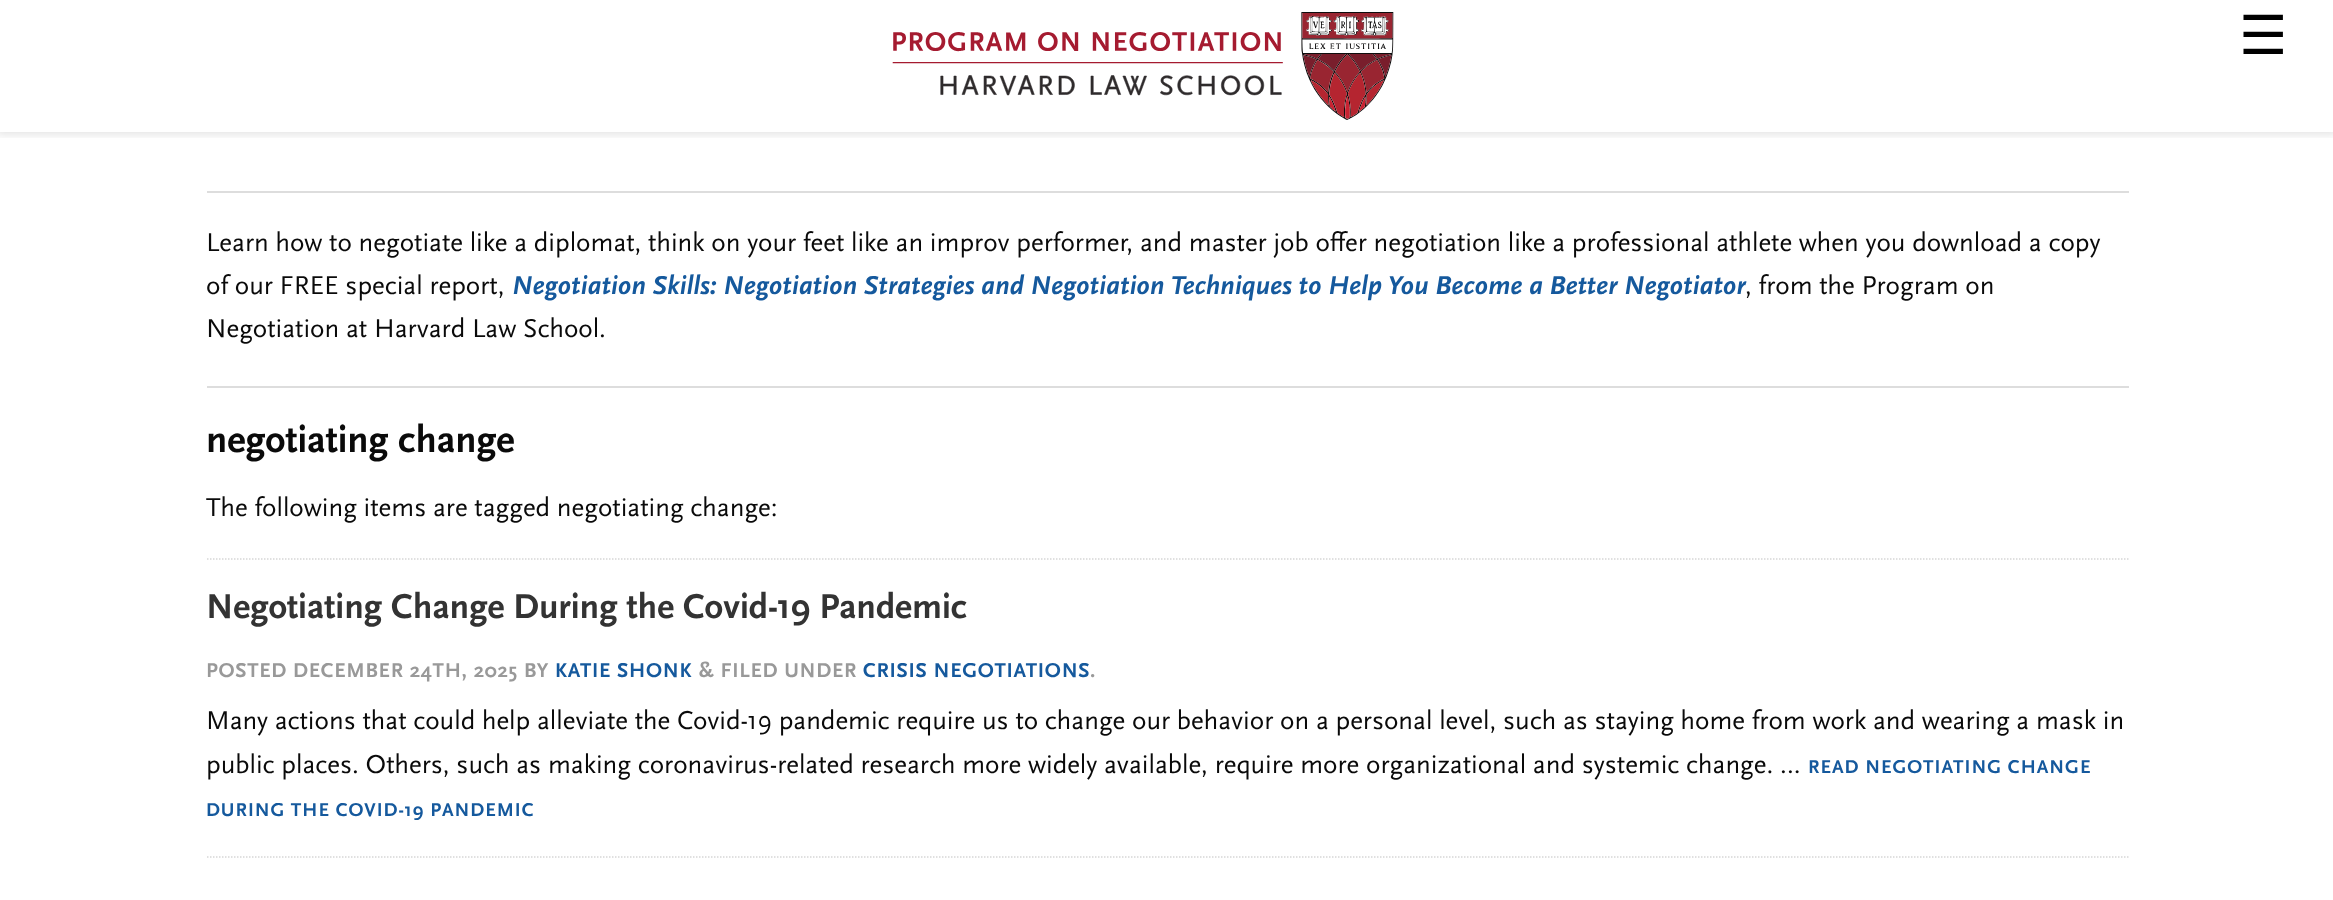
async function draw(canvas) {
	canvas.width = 2333;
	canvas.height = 900;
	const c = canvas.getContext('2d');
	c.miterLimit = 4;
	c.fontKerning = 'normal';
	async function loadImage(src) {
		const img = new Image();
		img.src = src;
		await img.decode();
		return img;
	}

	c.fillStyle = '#fff';
	c.fillRect(0, 0, 2333, 900);
	c.save();
	c.beginPath();
	c.rect(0, 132, 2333, 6);
	c.clip();
	c.fillStyle = '#0000001a';
	c.filter = 'blur(4px)';
	c.beginPath();
	c.rect(-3, -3, 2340, 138);
	c.fill();
	c.filter = 'none';
	c.restore();
	c.drawImage(await loadImage('img1.png'), 892, 12, 502, 108);
	c.font = '54px DejaVu Sans';
	c.fillStyle = '#000';
	c.fillText('☰', 2239, 54);
	c.fillStyle = '#ddd';
	c.fillRect(207, 191, 1922, 2);
	c.font = '27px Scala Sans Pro';
	c.fillStyle = '#0a0a0a';
	c.fillText('Learn how to negotiate like a diplomat, think on your feet like an improv performer, and master job offer negotiation like a professional athlete when you download a copy', 206, 251);
	c.fillText('of our FREE special report,', 206, 294);
	c.font = 'italic bold 27px Scala Sans Pro';
	c.fillStyle = '#15599d';
	c.fillText('Negotiation Skills: Negotiation Strategies and Negotiation Techniques to Help You Become a Better Negotiator', 512, 294);
	c.font = '27px Scala Sans Pro';
	c.fillStyle = '#0a0a0a';
	c.fillText(', from the Program on', 1745, 294);
	c.fillText('Negotiation at Harvard Law School.', 206, 337);
	c.fillStyle = '#ddd';
	c.fillRect(207, 386, 1922, 2);
	c.font = 'bold 39px Scala Sans Pro';
	c.fillStyle = '#0a0a0a';
	c.fillText('negotiating change', 206, 452);
	c.font = '27px Scala Sans Pro';
	c.fillText('The following items are tagged negotiating change:', 206, 516);
	c.beginPath();
	c.moveTo(207, 559);
	c.lineTo(2128.5, 559);
	c.strokeStyle = '#d6d6d6';
	c.lineWidth = 1.5;
	c.setLineDash([1.5, 1.5]);
	c.stroke();
	c.font = 'bold 36px Scala Sans Pro';
	c.fillStyle = '#333';
	c.fillText('Negotiating Change During the Covid-19 Pandemic', 206, 618);
	c.letterSpacing = '0.75px';
	c.font = 'bold 21px Scala Sans Pro';
	c.fillStyle = '#999';
	c.fillText('POSTED DECEMBER 24TH, 2025 BY', 206, 677);
	c.fillStyle = '#15599d';
	c.fillText('KATIE SHONK', 555, 677);
	c.fillStyle = '#999';
	c.fillText('& FILED UNDER', 699, 677);
	c.fillStyle = '#15599d';
	c.fillText('CRISIS NEGOTIATIONS', 863, 677);
	c.fillStyle = '#999';
	c.fillText('.', 1090, 677);
	c.letterSpacing = '0px';
	c.font = '27px Scala Sans Pro';
	c.fillStyle = '#0a0a0a';
	c.fillText('Many actions that could help alleviate the Covid-19 pandemic require us to change our behavior on a personal level, such as staying home from work and wearing a mask in', 206, 729);
	c.fillText('public places. Others, such as making coronavirus-related research more widely available, require more organizational and systemic change. …', 206, 773);
	c.letterSpacing = '1px';
	c.font = 'bold 19.5px Scala Sans Pro';
	c.fillStyle = '#15599d';
	c.fillText('READ NEGOTIATING CHANGE', 1808, 773);
	c.fillText('DURING THE COVID-19 PANDEMIC', 206, 816);
	c.beginPath();
	c.moveTo(207, 857);
	c.lineTo(2128.5, 857);
	c.stroke();
}

draw(document.querySelector('canvas'));
